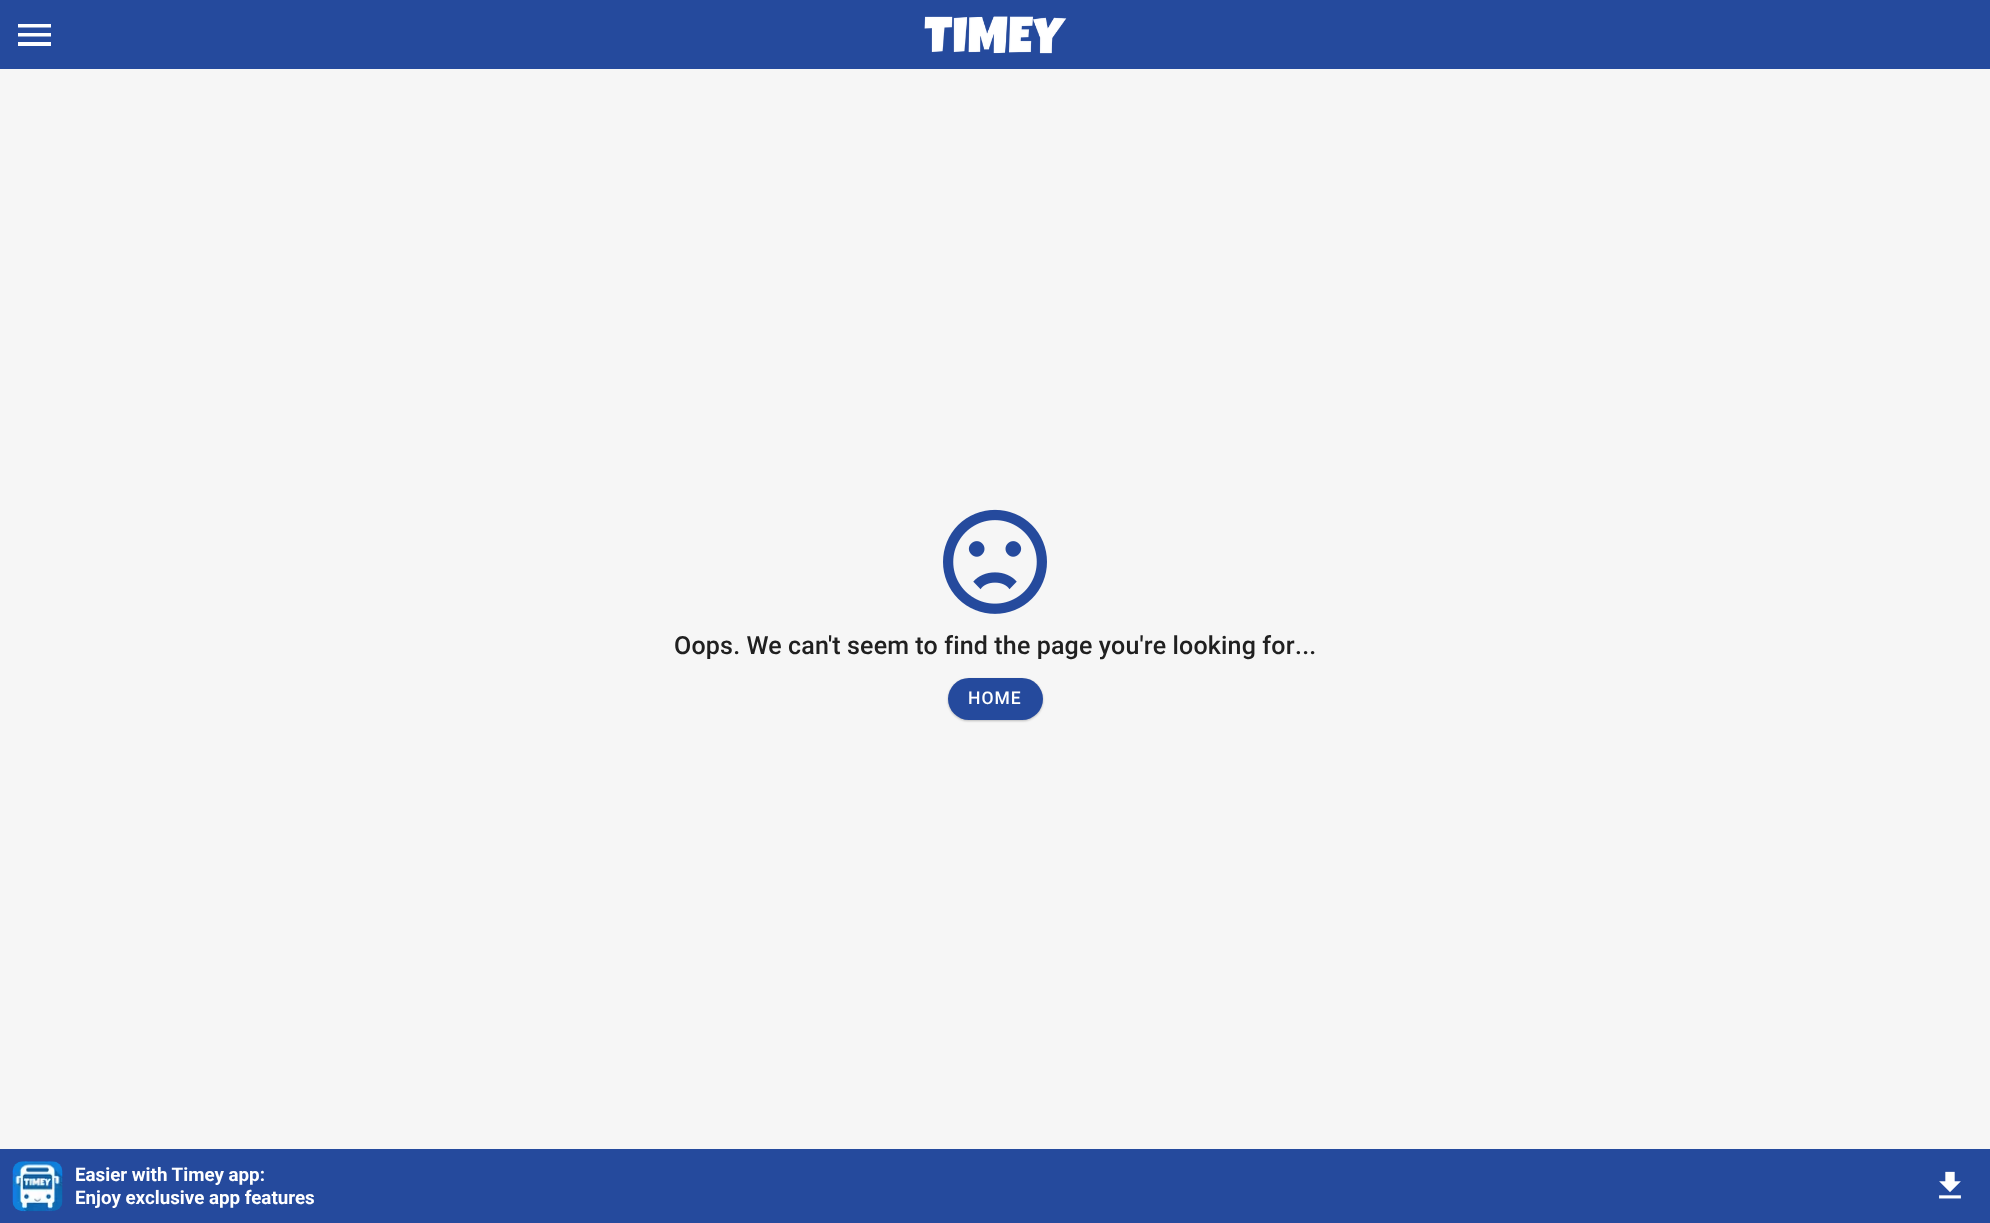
async function draw(canvas) {
	canvas.width = 1990;
	canvas.height = 1223;
	const c = canvas.getContext('2d');
	c.miterLimit = 4;
	c.fontKerning = 'normal';
	async function loadImage(src) {
		const img = new Image();
		img.src = src;
		await img.decode();
		return img;
	}

	c.fillStyle = '#f6f6f6';
	c.fillRect(0, 0, 1990, 1223);
	c.fillStyle = '#254a9d';
	c.fillRect(0, 0, 1990, 69);
	c.fillStyle = '#fff';
	c.beginPath();
	c.moveTo(18, 24);
	c.lineTo(51, 24);
	c.lineTo(51, 27.5);
	c.lineTo(18, 27.5);
	c.closePath();
	c.moveTo(18, 33);
	c.lineTo(51, 33);
	c.lineTo(51, 36.5);
	c.lineTo(18, 36.5);
	c.closePath();
	c.moveTo(18, 42);
	c.lineTo(51, 42);
	c.lineTo(51, 46);
	c.lineTo(18, 46);
	c.closePath();
	c.fill();
	c.drawImage(await loadImage('img1.png'), 924, 16, 143, 38);
	c.drawImage(await loadImage('img2.png'), 943, 509, 104, 105);
	c.letterSpacing = '0.2px';
	c.wordSpacing = '-0.25px';
	c.font = '500 25px Roboto';
	c.fillStyle = '#202020';
	c.fillText('Oops. We can\'t seem to find the page you\'re looking for', 674, 654);
	c.wordSpacing = '0px';
	c.fillText('...', 1295, 654);
	c.fillStyle = '#0000003d';
	c.filter = 'blur(1px)';
	c.beginPath();
	c.roundRect(948, 679, 95, 42, 21);
	c.fill();
	c.filter = 'none';
	c.fillStyle = '#254a9d';
	c.beginPath();
	c.roundRect(948, 678, 95, 42, 21);
	c.fill();
	c.letterSpacing = '1px';
	c.font = '500 17.5px Roboto';
	c.fillStyle = '#fff';
	c.fillText('HOME', 968, 704);
	c.fillStyle = '#254a9d';
	c.fillRect(0, 1149, 1990, 74);
	c.drawImage(await loadImage('img3.png'), 12, 1161, 51, 51);
	c.letterSpacing = '0px';
	c.font = 'bold 18.75px Roboto';
	c.fillStyle = '#fff';
	c.fillText('Easier with Timey app:', 75, 1181);
	c.fillText('Enjoy exclusive app features', 75, 1204);
	c.drawImage(await loadImage('img4.png'), 1939, 1171, 22, 28);
}

draw(document.querySelector('canvas'));
